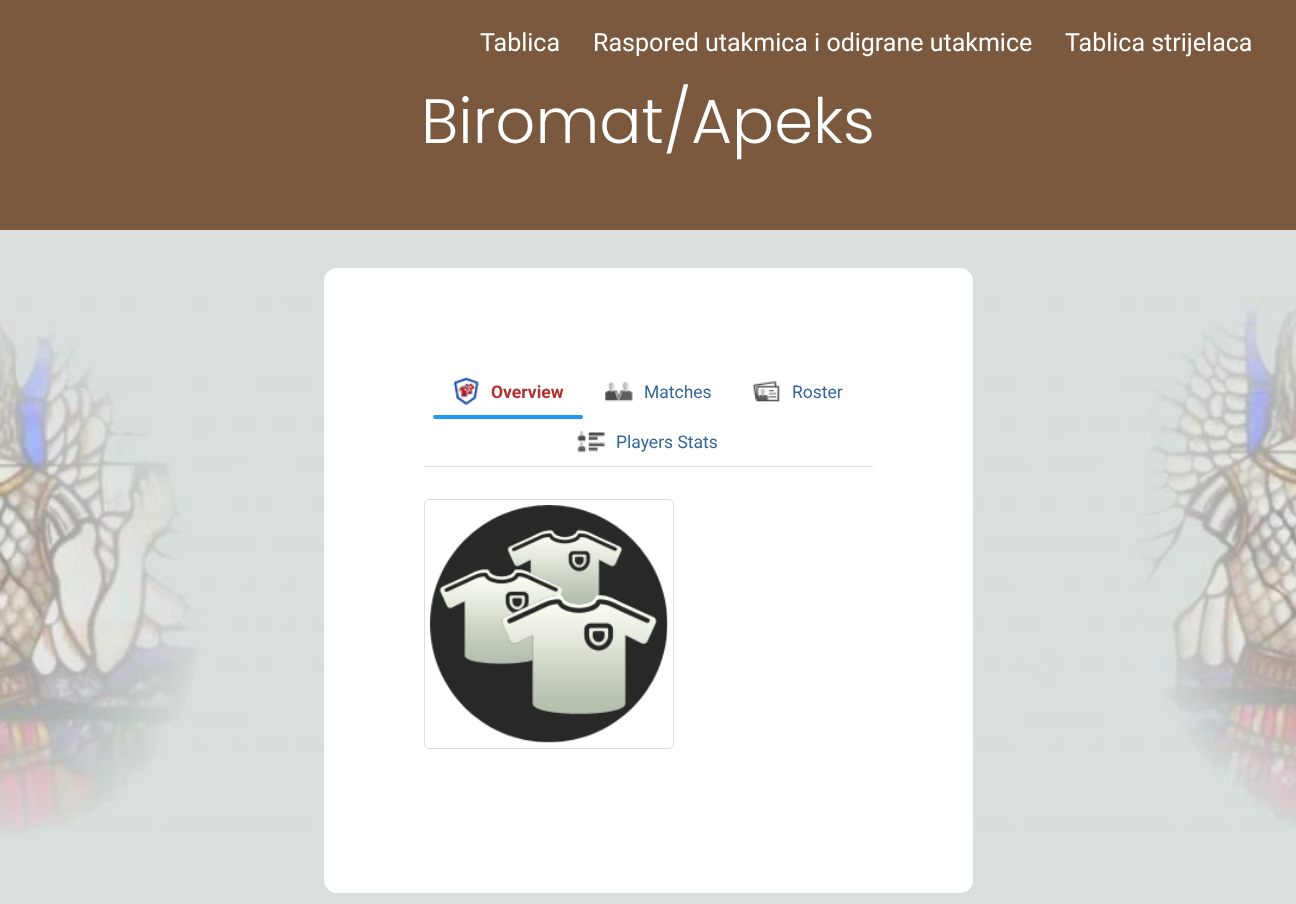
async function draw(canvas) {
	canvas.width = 1296;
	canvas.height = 904;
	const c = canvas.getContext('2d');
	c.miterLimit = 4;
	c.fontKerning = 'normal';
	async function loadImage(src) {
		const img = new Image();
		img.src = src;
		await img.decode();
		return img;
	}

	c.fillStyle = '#d9dfdd';
	c.fillRect(0, 0, 1296, 904);
	c.drawImage(await loadImage('img1.png'), 0, 296, 1296, 538);
	c.fillStyle = '#7b593e';
	c.fillRect(0, 0, 1296, 230);
	c.font = '25px Roboto';
	c.fillStyle = '#fff';
	for (const [text, x, y] of [
		['Tablica', 480, 51],
		['Raspored utakmica i odigrane utakmice', 593, 51],
		['Tablica strijelaca', 1065, 51],
	]) {
		c.fillText(text, x, y);
	}
	c.font = '300 62.5px Poppins';
	c.fillText('Biromat/Apeks', 421, 143);
	c.beginPath();
	c.roundRect(324, 268, 649, 625, 13);
	c.fill();
	c.fillStyle = '#ddd';
	c.fillRect(424, 466, 449, 1);
	c.drawImage(await loadImage('img2.png'), 453, 377, 26, 29);
	c.font = 'bold 17.5px Roboto';
	c.fillStyle = '#b03030';
	c.fillText('Overview', 491, 398);
	c.fillStyle = '#2196f3';
	c.beginPath();
	c.roundRect(433, 415, 150, 4, 2);
	c.fill();
	c.drawImage(await loadImage('img3.png'), 604, 381, 29, 21);
	c.font = '17.5px Roboto';
	c.fillStyle = '#369';
	c.fillText('Matches', 644, 398);
	c.drawImage(await loadImage('img4.png'), 752, 381, 29, 21);
	c.fillText('Roster', 792, 398);
	c.drawImage(await loadImage('img5.png'), 577, 430, 29, 23);
	c.fillText('Players Stats', 616, 448);
	c.beginPath();
	c.roundRect(424.5, 499.5, 249, 249, 4.5);
	c.strokeStyle = '#ddd';
	c.stroke();
	c.drawImage(await loadImage('img6.png'), 430, 505, 238, 238);
}

draw(document.querySelector('canvas'));
